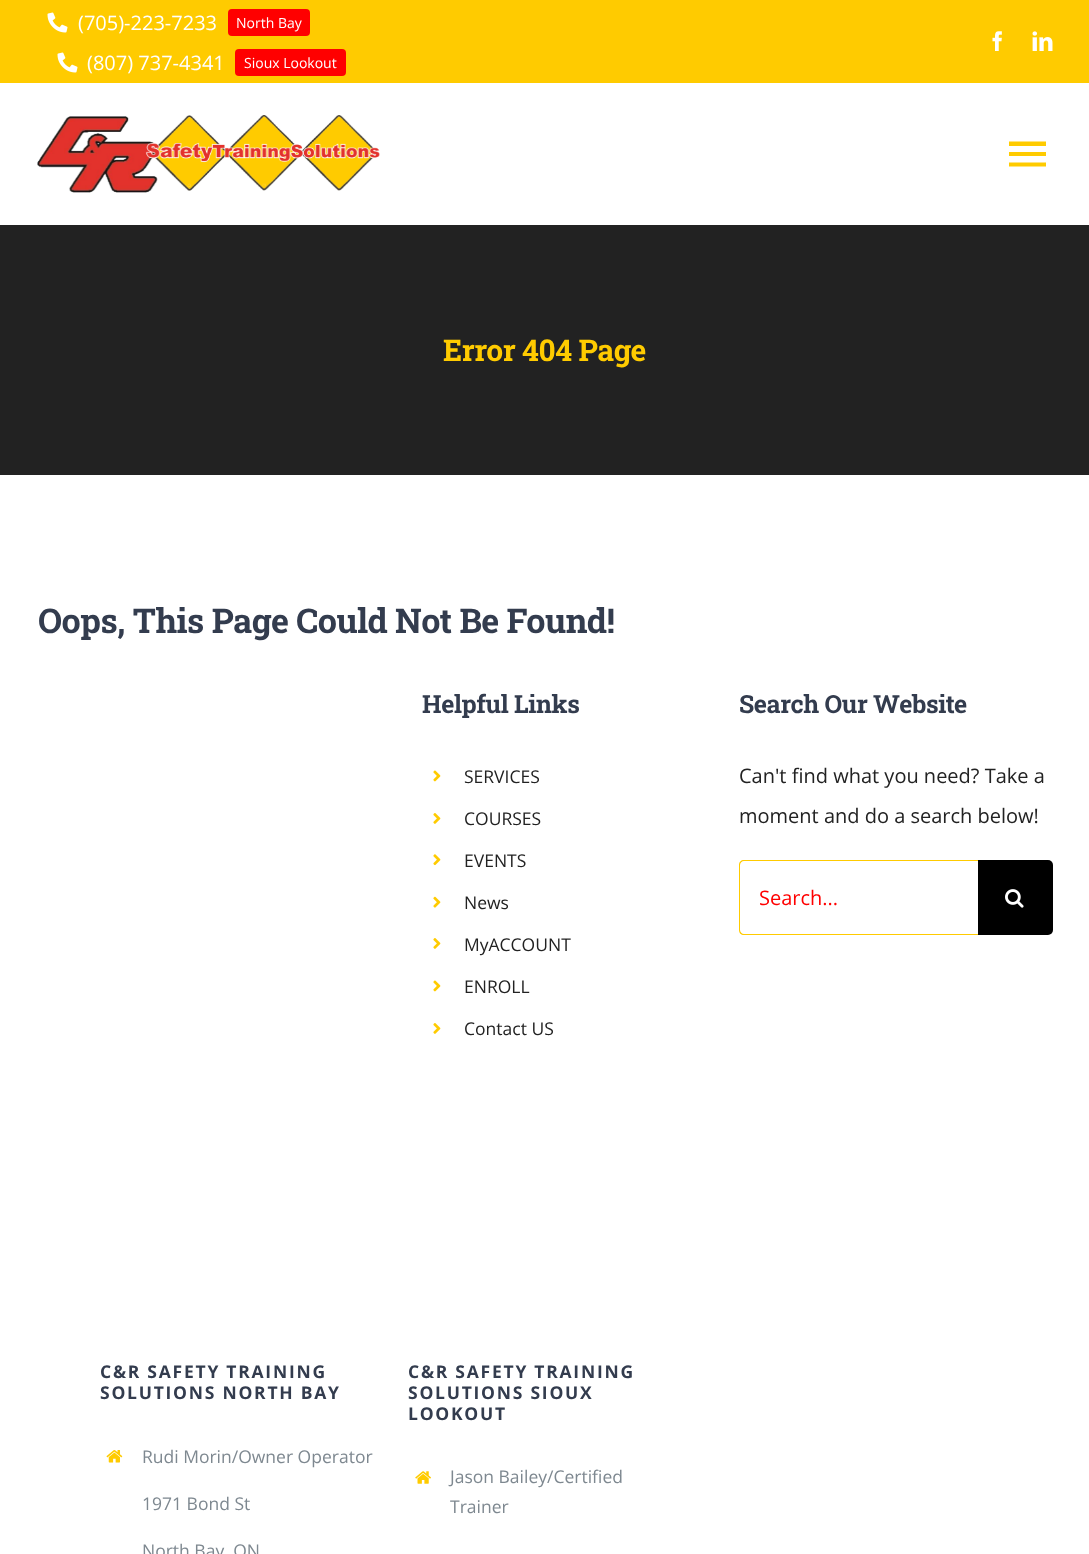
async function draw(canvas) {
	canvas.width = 1089;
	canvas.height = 1554;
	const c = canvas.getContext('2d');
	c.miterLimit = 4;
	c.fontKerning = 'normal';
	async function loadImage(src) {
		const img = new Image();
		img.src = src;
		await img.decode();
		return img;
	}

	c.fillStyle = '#fff';
	c.fillRect(0, 0, 1089, 1554);
	c.fillStyle = '#ffcb00';
	c.fillRect(0, 0, 1089, 83);
	c.drawImage(await loadImage('img1.png'), 47, 12, 21, 21);
	c.font = '20px Open Sans';
	c.fillStyle = '#fff';
	c.fillText('(705)-223-7233', 78, 30);
	c.fillStyle = '#f00';
	c.beginPath();
	c.roundRect(228, 9, 82, 27, 4);
	c.fill();
	c.font = '14px Open Sans';
	c.fillStyle = '#fff';
	c.fillText('North Bay', 236, 28);
	c.drawImage(await loadImage('img1.png'), 57, 52, 21, 21);
	c.font = '20px Open Sans';
	c.fillText('(807) 737-4341', 87, 70);
	c.fillStyle = '#f00';
	c.beginPath();
	c.roundRect(235, 49, 111, 27, 4);
	c.fill();
	c.font = '14px Open Sans';
	c.fillStyle = '#fff';
	c.fillText('Sioux Lookout', 244, 68);
	c.drawImage(await loadImage('img2.png'), 992, 31, 10, 20);
	c.drawImage(await loadImage('img3.png'), 1032, 31, 21, 20);
	c.drawImage(await loadImage('img4.png'), 37, 115, 343, 78);
	c.fillStyle = '#ffcb00';
	c.beginPath();
	c.moveTo(1009, 141.5);
	c.lineTo(1046, 141.5);
	c.lineTo(1046, 146);
	c.lineTo(1009, 146);
	c.closePath();
	c.moveTo(1009, 156);
	c.lineTo(1009, 152);
	c.lineTo(1046, 152);
	c.lineTo(1046, 156);
	c.closePath();
	c.moveTo(1009, 166.5);
	c.lineTo(1009, 162.5);
	c.lineTo(1046, 162.5);
	c.lineTo(1046, 166.5);
	c.closePath();
	c.fill();
	c.fillStyle = '#222';
	c.fillRect(0, 225, 1089, 250);
	c.letterSpacing = '-0.5px';
	c.font = 'bold 30px Roboto Slab';
	c.fillStyle = '#ffcb00';
	c.fillText('Error 404 Page', 443, 361);
	c.font = 'bold 34.1px Roboto Slab';
	c.fillStyle = '#333c4e';
	c.fillText('Oops, This Page Could Not Be Found!', 38, 633);
	c.letterSpacing = '-0.4px';
	c.font = 'bold 25px Roboto Slab';
	c.fillText('Helpful Links', 422, 713);
	c.drawImage(await loadImage('img5.png'), 433, 770, 8, 12);
	c.letterSpacing = '0px';
	c.font = '17.5px Open Sans';
	c.fillStyle = '#222';
	c.fillText('SERVICES', 464, 783);
	c.drawImage(await loadImage('img6.png'), 433, 813, 8, 11);
	c.fillText('COURSES', 464, 825);
	c.drawImage(await loadImage('img7.png'), 433, 854, 8, 12);
	c.fillText('EVENTS', 464, 867);
	c.drawImage(await loadImage('img8.png'), 433, 896, 8, 12);
	c.fillText('News', 464, 909);
	c.drawImage(await loadImage('img6.png'), 433, 938, 8, 11);
	c.fillText('MyACCOUNT', 464, 951);
	c.drawImage(await loadImage('img5.png'), 433, 980, 8, 12);
	c.fillText('ENROLL', 464, 993);
	c.drawImage(await loadImage('img6.png'), 433, 1023, 8, 11);
	c.fillText('Contact US', 464, 1035);
	c.letterSpacing = '-0.4px';
	c.font = 'bold 25px Roboto Slab';
	c.fillStyle = '#333c4e';
	c.fillText('Search Our Website', 739, 713);
	c.letterSpacing = '0px';
	c.font = '20px Open Sans';
	c.fillStyle = '#222';
	c.fillText('Can\'t find what you need? Take a', 739, 783);
	c.fillText('moment and do a search below!', 739, 823);
	c.fillStyle = '#ffcb00';
	c.beginPath();
	c.moveTo(744, 860);
	c.bezierCurveTo(741, 860, 739, 862, 739, 865);
	c.lineTo(739, 930);
	c.bezierCurveTo(739, 933, 741, 935, 744, 935);
	c.lineTo(978, 935);
	c.lineTo(978, 934);
	c.lineTo(744, 934);
	c.bezierCurveTo(742, 934, 740, 932, 740, 930);
	c.lineTo(740, 865);
	c.bezierCurveTo(740, 863, 742, 861, 744, 861);
	c.lineTo(978, 861);
	c.lineTo(978, 860);
	c.closePath();
	c.fill();
	c.fillStyle = '#f00';
	c.fillText('Search...', 759, 905);
	c.fillStyle = '#000';
	c.beginPath();
	c.roundRect(978, 860, 75, 75, [0, 5, 5, 0]);
	c.fill();
	c.drawImage(await loadImage('img9.png'), 1005, 889, 19, 19);
	c.letterSpacing = '1.75px';
	c.font = 'bold 17.5px Open Sans';
	c.fillStyle = '#333c4e';
	c.fillText('C&R SAFETY TRAINING', 100, 1378);
	c.fillText('SOLUTIONS NORTH BAY', 100, 1399);
	c.drawImage(await loadImage('img10.png'), 106, 1450, 17, 13);
	c.letterSpacing = '0px';
	c.font = '17.5px Open Sans';
	c.fillStyle = '#7e8890';
	for (const [text, x, y] of [
		['Rudi Morin/Owner Operator', 142, 1463],
		['1971 Bond St', 142, 1510],
		['North Bay, ON', 142, 1557],
	]) {
		c.fillText(text, x, y);
	}
	c.letterSpacing = '1.75px';
	c.font = 'bold 17.5px Open Sans';
	c.fillStyle = '#333c4e';
	for (const [text, x, y] of [
		['C&R SAFETY TRAINING', 408, 1378],
		['SOLUTIONS SIOUX', 408, 1399],
		['LOOKOUT', 408, 1420],
	]) {
		c.fillText(text, x, y);
	}
	c.drawImage(await loadImage('img11.png'), 415, 1471, 16, 13);
	c.letterSpacing = '0px';
	c.font = '17.5px Open Sans';
	c.fillStyle = '#7e8890';
	c.fillText('Jason Bailey/Certified', 450, 1483);
	c.fillText('Trainer', 450, 1513);
}

draw(document.querySelector('canvas'));
